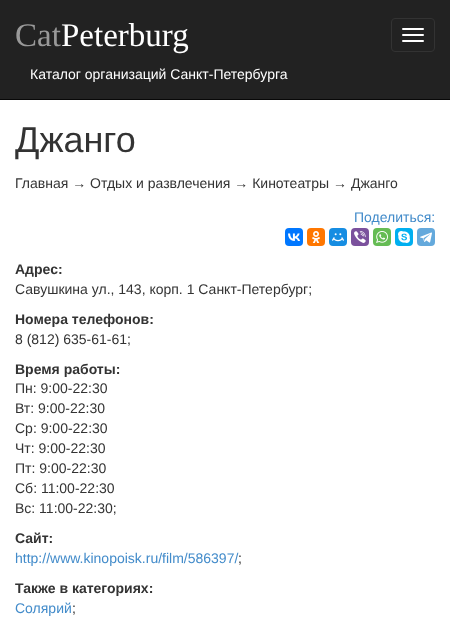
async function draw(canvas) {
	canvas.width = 450;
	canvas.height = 624;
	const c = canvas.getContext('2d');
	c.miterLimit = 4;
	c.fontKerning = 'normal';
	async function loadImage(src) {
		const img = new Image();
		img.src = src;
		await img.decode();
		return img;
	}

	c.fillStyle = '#fff';
	c.fillRect(0, 0, 450, 624);
	c.fillStyle = '#222';
	c.fillRect(0, 0, 450, 99);
	c.fillStyle = '#080808';
	c.fillRect(0, 99, 450, 1);
	c.font = '33px Liberation Serif';
	c.fillStyle = '#999';
	c.fillText('Cat', 15, 46);
	c.fillStyle = '#fff';
	c.fillText('Peterburg', 61, 46);
	c.beginPath();
	c.roundRect(391.5, 18.5, 43, 33, 3.5);
	c.strokeStyle = '#333';
	c.stroke();
	c.beginPath();
	c.roundRect(402, 28, 22, 2, 1);
	c.fill();
	c.beginPath();
	c.roundRect(402, 34, 22, 2, 1);
	c.fill();
	c.beginPath();
	c.roundRect(402, 40, 22, 2, 1);
	c.fill();
	c.font = '14px Liberation Sans';
	c.fillText('Каталог организаций Санкт-Петербурга', 30, 79);
	c.font = '36px Liberation Sans';
	c.fillStyle = '#333';
	c.fillText('Джанго', 15, 152);
	c.font = '14px Liberation Sans';
	c.fillText('Главная → Отдых и развлечения → Кинотеатры → Джанго', 15, 188);
	c.fillStyle = '#428bca';
	c.fillText('Поделиться:', 354, 222);
	c.fillStyle = '#07f';
	c.beginPath();
	c.roundRect(285, 228, 18, 18, 4);
	c.fill();
	c.drawImage(await loadImage('img1.png'), 288, 233, 12, 8);
	c.fillStyle = '#f70';
	c.beginPath();
	c.roundRect(307, 228, 18, 18, 4);
	c.fill();
	c.drawImage(await loadImage('img2.png'), 312, 231, 8, 12);
	c.fillStyle = '#168de2';
	c.beginPath();
	c.roundRect(329, 228, 18, 18, 4);
	c.fill();
	c.drawImage(await loadImage('img3.png'), 332, 233, 12, 9);
	c.fillStyle = '#7b519d';
	c.beginPath();
	c.roundRect(351, 228, 18, 18, 4);
	c.fill();
	c.drawImage(await loadImage('img4.png'), 354, 231, 12, 12);
	c.fillStyle = '#65bc54';
	c.beginPath();
	c.roundRect(373, 228, 18, 18, 4);
	c.fill();
	c.drawImage(await loadImage('img5.png'), 376, 231, 12, 12);
	c.fillStyle = '#00aff0';
	c.beginPath();
	c.roundRect(395, 228, 18, 18, 4);
	c.fill();
	c.drawImage(await loadImage('img6.png'), 398, 231, 12, 12);
	c.fillStyle = '#64a9dc';
	c.beginPath();
	c.roundRect(417, 228, 18, 18, 4);
	c.fill();
	c.drawImage(await loadImage('img7.png'), 420, 232, 12, 11);
	c.font = 'bold 14px Liberation Sans';
	c.fillStyle = '#333';
	c.fillText('Адрес:', 15, 274);
	c.font = '14px Liberation Sans';
	c.fillText('Савушкина ул., 143, корп. 1 Санкт-Петербург;', 15, 294);
	c.font = 'bold 14px Liberation Sans';
	c.fillText('Номера телефонов:', 15, 324);
	c.font = '14px Liberation Sans';
	c.fillText('8 (812) 635-61-61;', 15, 344);
	c.font = 'bold 14px Liberation Sans';
	c.fillText('Время работы:', 15, 374);
	c.font = '14px Liberation Sans';
	for (const [text, x, y] of [
		['Пн: 9:00-22:30', 15, 393],
		['Вт: 9:00-22:30', 15, 413],
		['Ср: 9:00-22:30', 15, 433],
		['Чт: 9:00-22:30', 15, 453],
		['Пт: 9:00-22:30', 15, 473],
		['Сб: 11:00-22:30', 15, 493],
		['Вс: 11:00-22:30;', 15, 513],
	]) {
		c.fillText(text, x, y);
	}
	c.font = 'bold 14px Liberation Sans';
	c.fillText('Сайт:', 15, 543);
	c.font = '14px Liberation Sans';
	c.fillStyle = '#428bca';
	c.fillText('http://www.kinopoisk.ru/film/586397/', 15, 563);
	c.fillStyle = '#333';
	c.fillText(';', 238, 563);
	c.font = 'bold 14px Liberation Sans';
	c.fillText('Также в категориях:', 15, 593);
	c.font = '14px Liberation Sans';
	c.fillStyle = '#428bca';
	c.fillText('Солярий', 15, 613);
	c.fillStyle = '#333';
	c.fillText(';', 72, 613);
}

draw(document.querySelector('canvas'));
